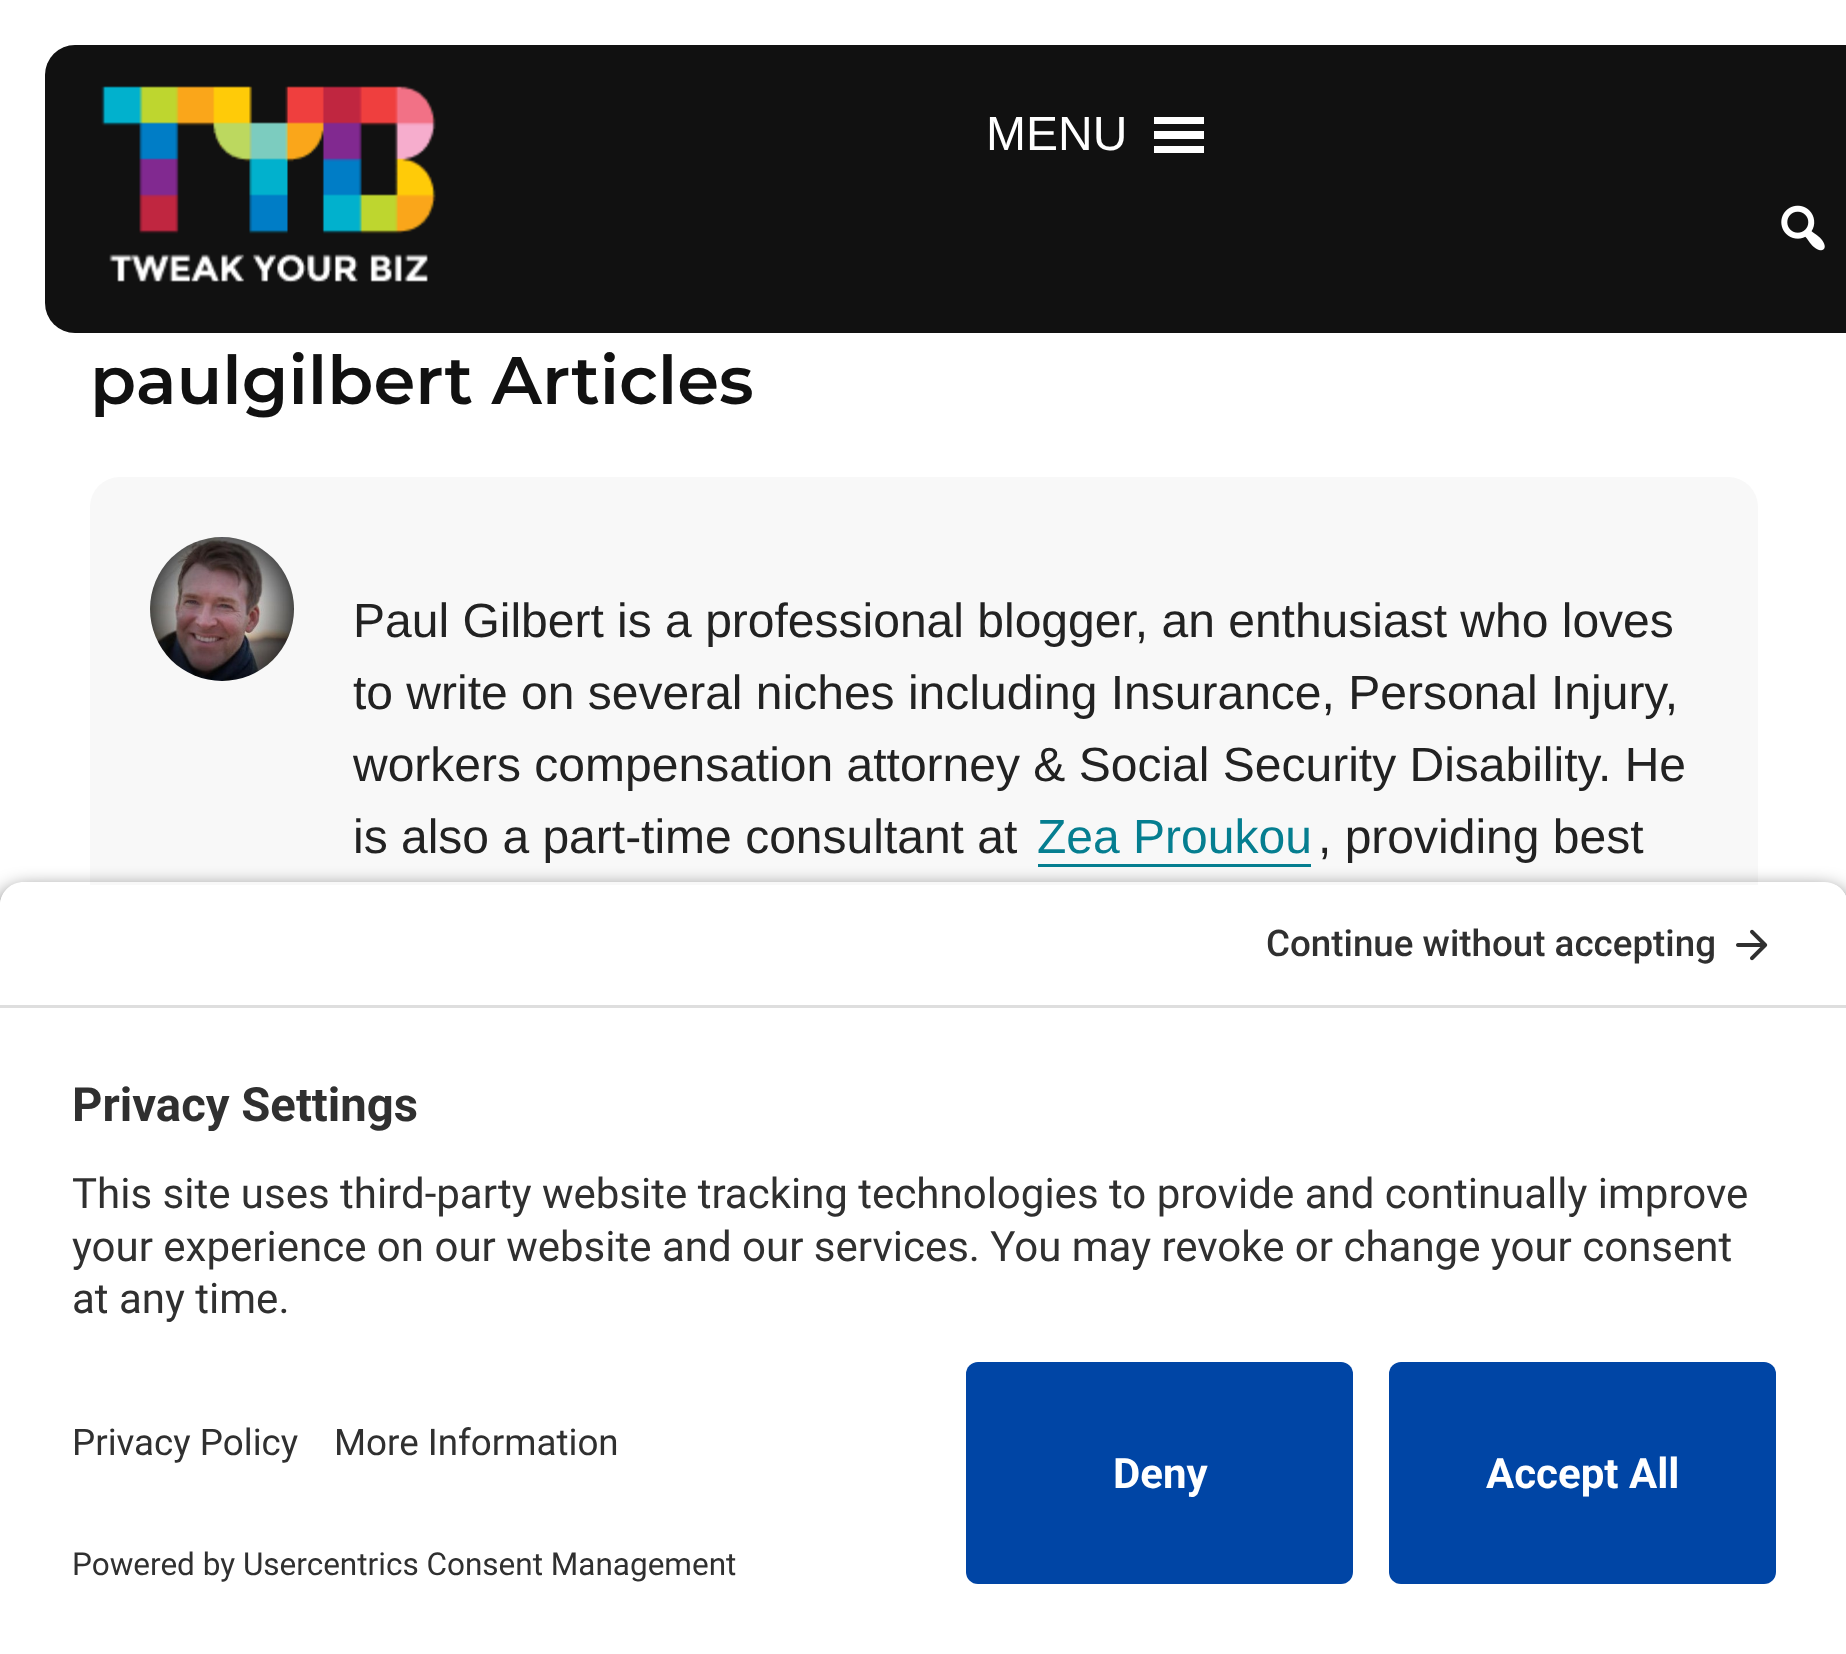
async function draw(canvas) {
	canvas.width = 1846;
	canvas.height = 1654;
	const c = canvas.getContext('2d');
	c.miterLimit = 4;
	c.fontKerning = 'normal';
	async function loadImage(src) {
		const img = new Image();
		img.src = src;
		await img.decode();
		return img;
	}

	c.fillStyle = '#fff';
	c.fillRect(0, 0, 1846, 1654);
	c.fillStyle = '#111';
	c.beginPath();
	c.roundRect(45, 45, 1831, 288, 30);
	c.fill();
	c.drawImage(await loadImage('img1.png'), 101, 86, 335, 197);
	c.font = '48px Liberation Sans';
	c.fillStyle = '#fff';
	c.fillText('MENU', 986, 150);
	c.beginPath();
	c.moveTo(1154, 153);
	c.lineTo(1204, 153);
	c.lineTo(1204, 146);
	c.lineTo(1154, 146);
	c.closePath();
	c.moveTo(1154, 117);
	c.lineTo(1154, 124);
	c.lineTo(1204, 124);
	c.lineTo(1204, 117);
	c.closePath();
	c.moveTo(1154, 139);
	c.lineTo(1204, 139);
	c.lineTo(1204, 131);
	c.lineTo(1154, 131);
	c.closePath();
	c.fill();
	c.drawImage(await loadImage('img2.png'), 1781, 205, 44, 46);
	c.font = '600 67.25px Montserrat';
	c.fillStyle = '#111';
	c.fillText('paulgilbert Articles', 90, 404);
	c.fillStyle = '#f8f8f8';
	c.beginPath();
	c.roundRect(90, 477, 1668, 720, 30);
	c.fill();
	c.drawImage(await loadImage('img3.png'), 150, 537, 144, 144);
	c.font = '48px Liberation Sans';
	c.fillStyle = '#222';
	for (const [text, x, y] of [
		['Paul Gilbert is a professional blogger, an enthusiast who loves', 353, 637],
		['to write on several niches including Insurance, Personal Injury,', 353, 709],
		['workers compensation attorney & Social Security Disability. He', 353, 781],
		['is also a part-time consultant at', 353, 853],
	]) {
		c.fillText(text, x, y);
	}
	c.fillStyle = '#057e90';
	c.fillText('Zea Proukou', 1037, 853);
	c.fillRect(1038, 864, 273, 3);
	c.fillStyle = '#222';
	c.fillText(', providing best', 1318, 853);
	c.save();
	c.beginPath();
	c.moveTo(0, 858);
	c.lineTo(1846, 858);
	c.lineTo(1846, 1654);
	c.lineTo(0, 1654);
	c.closePath();
	c.moveTo(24, 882);
	c.lineTo(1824, 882);
	c.bezierCurveTo(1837.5, 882, 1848, 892.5, 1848, 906);
	c.lineTo(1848, 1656);
	c.lineTo(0, 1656);
	c.lineTo(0, 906);
	c.bezierCurveTo(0, 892.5, 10.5, 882, 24, 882);
	c.closePath();
	c.clip('evenodd');
	c.fillStyle = '#000000cc';
	c.filter = 'blur(10.5px)';
	c.beginPath();
	c.roundRect(0, 891, 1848, 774, 24);
	c.fill();
	c.filter = 'none';
	c.restore();
	c.save();
	c.beginPath();
	c.moveTo(24, 882);
	c.lineTo(1824, 882);
	c.bezierCurveTo(1837.5, 882, 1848, 892.5, 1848, 906);
	c.lineTo(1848, 1338);
	c.lineTo(0, 1338);
	c.lineTo(0, 906);
	c.bezierCurveTo(0, 892.5, 10.5, 882, 24, 882);
	c.closePath();
	c.clip();
	c.fillStyle = '#fff';
	c.fillRect(0, 885, 1846, 120);
	c.restore();
	c.fillStyle = '#dedede';
	c.fillRect(0, 1005, 1846, 3);
	c.font = '500 36.75px Roboto';
	c.fillStyle = '#303030';
	c.fillText('Continue without accepting', 1266, 956);
	c.drawImage(await loadImage('img4.png'), 1736, 929, 32, 32);
	c.fillStyle = '#fff';
	c.fillRect(90, 1008, 1668, 189);
	c.font = 'bold 47.25px Roboto';
	c.fillStyle = '#303030';
	c.fillText('Privacy Settings', 72, 1121);
	c.font = '42px Roboto';
	for (const [text, x, y] of [
		['This site uses third-party website tracking technologies to provide and continually improve', 72, 1208],
		['your experience on our website and our services. You may revoke or change your consent', 72, 1261],
		['at any time.', 72, 1313],
	]) {
		c.fillText(text, x, y);
	}
	c.font = '36.75px Roboto';
	c.fillText('Privacy Policy', 72, 1455);
	c.fillText('More Information', 334, 1455);
	c.font = '31.5px Roboto';
	c.fillText('Powered by Usercentrics Consent Management', 72, 1575);
	c.fillStyle = '#0045a5';
	c.beginPath();
	c.roundRect(966, 1362, 387, 222, 12);
	c.fill();
	c.font = 'bold 42px Roboto';
	c.fillStyle = '#fff';
	c.fillText('Deny', 1113, 1488);
	c.fillStyle = '#0045a5';
	c.beginPath();
	c.roundRect(1389, 1362, 387, 222, 12);
	c.fill();
	c.fillStyle = '#fff';
	c.fillText('Accept All', 1486, 1488);
}

draw(document.querySelector('canvas'));
